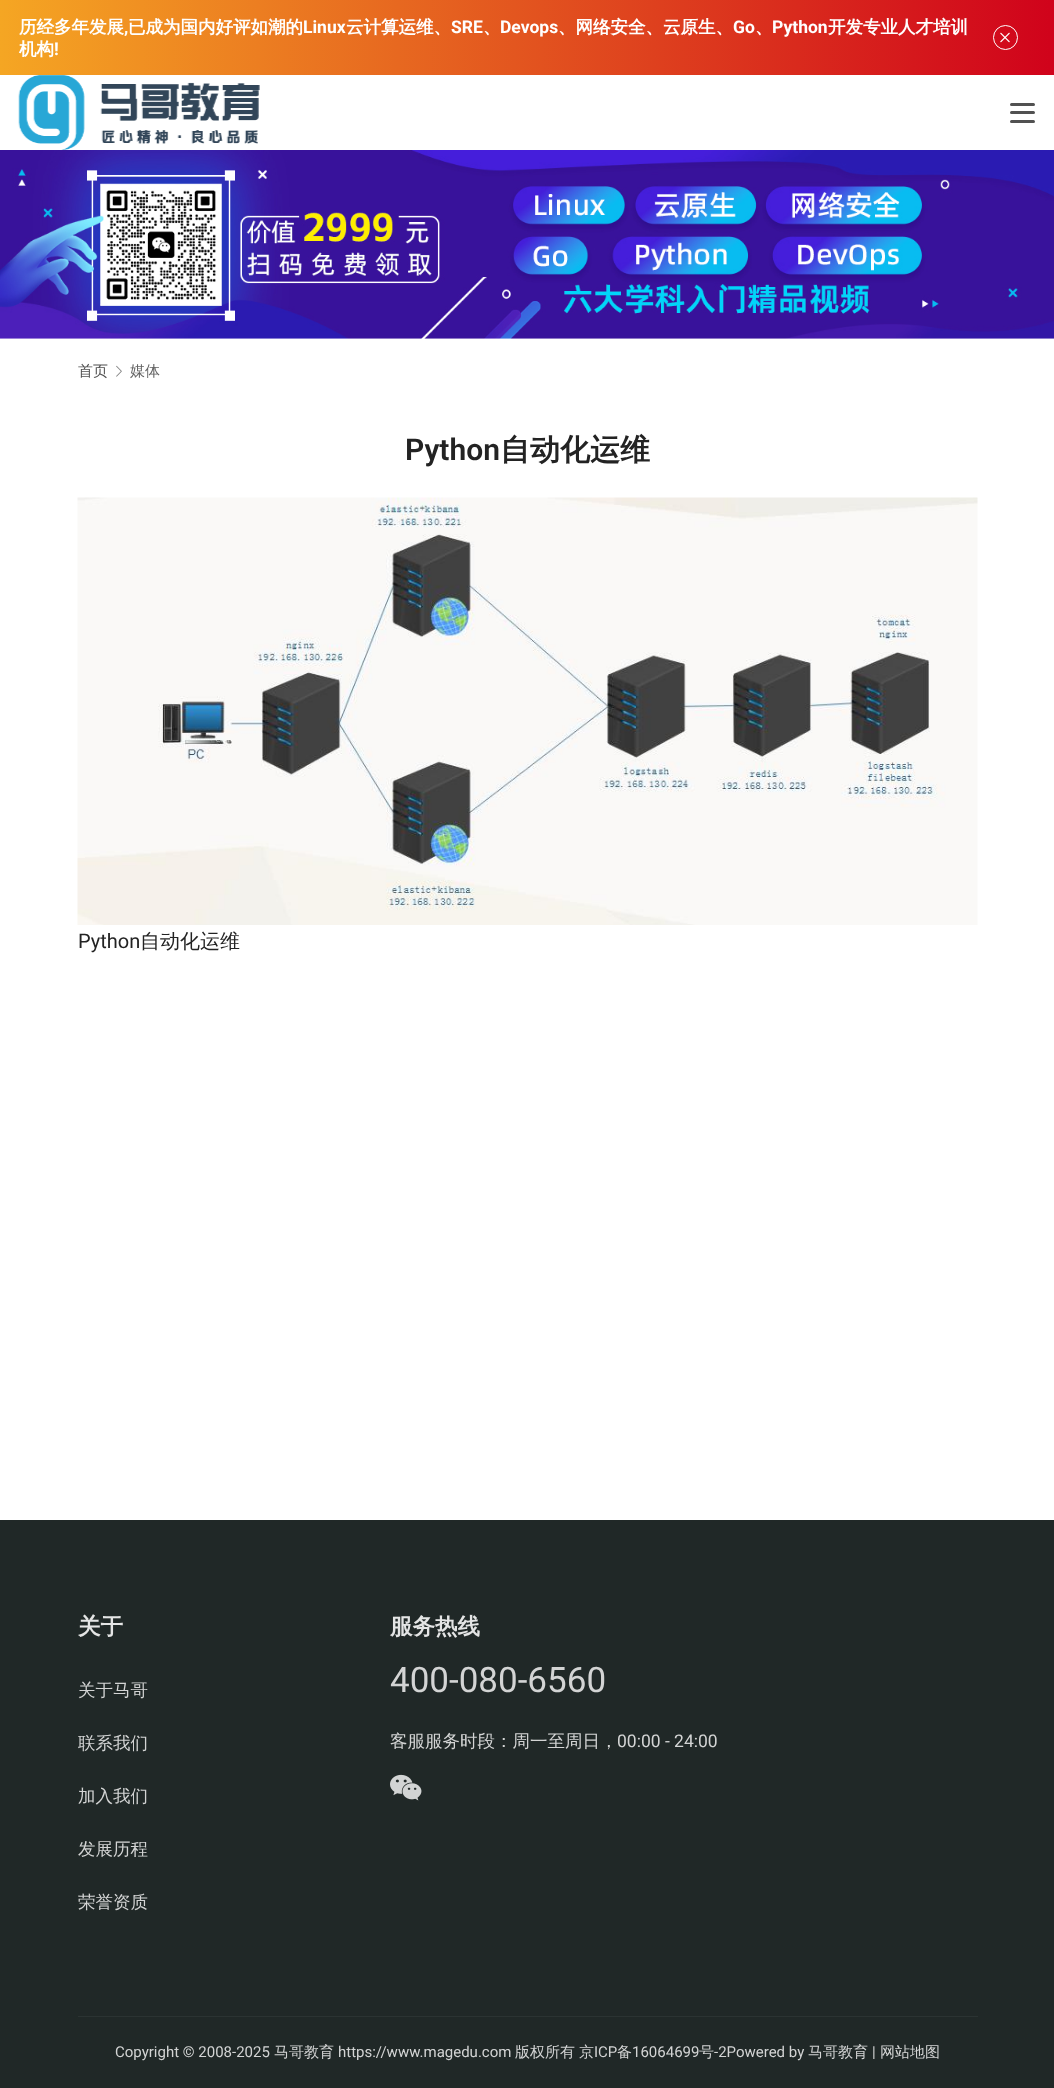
async function draw(canvas) {
	canvas.width = 1054;
	canvas.height = 2088;
	const c = canvas.getContext('2d');
	c.miterLimit = 4;
	c.fontKerning = 'normal';
	async function loadImage(src) {
		const img = new Image();
		img.src = src;
		await img.decode();
		return img;
	}
	let gradient;

	c.fillStyle = '#fff';
	c.fillRect(0, 0, 1054, 2088);
	gradient = c.createLinearGradient(0, 38, 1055, 37);
	gradient.addColorStop(0, '#f5a623');
	gradient.addColorStop(1, '#d0021b');
	c.fillStyle = gradient;
	c.fillRect(0, 0, 1054, 75);
	c.font = 'bold 17.5px WenQuanYi Zen Hei';
	c.fillStyle = '#fff';
	c.fillText('历经多年发展', 19, 33);
	c.font = 'bold 17.5px Roboto';
	c.fillText(',', 124, 33);
	c.font = 'bold 17.5px WenQuanYi Zen Hei';
	c.fillText('已成为国内好评如潮的', 128, 33);
	c.font = 'bold 17.5px Roboto';
	c.fillText('Linux', 303, 33);
	c.font = 'bold 17.5px WenQuanYi Zen Hei';
	c.fillText('云计算运维、', 346, 33);
	c.font = 'bold 17.5px Roboto';
	c.fillText('SRE', 451, 33);
	c.font = 'bold 17.5px WenQuanYi Zen Hei';
	c.fillText('、', 483, 33);
	c.font = 'bold 17.5px Roboto';
	c.fillText('Devops', 500, 33);
	c.font = 'bold 17.5px WenQuanYi Zen Hei';
	c.fillText('、网络安全、云原生、', 558, 33);
	c.font = 'bold 17.5px Roboto';
	c.fillText('Go', 733, 33);
	c.font = 'bold 17.5px WenQuanYi Zen Hei';
	c.fillText('、', 755, 33);
	c.font = 'bold 17.5px Roboto';
	c.fillText('Python', 772, 33);
	c.font = 'bold 17.5px WenQuanYi Zen Hei';
	c.fillText('开发专业人才培训', 828, 33);
	c.fillText('机构', 19, 55);
	c.font = 'bold 17.5px Roboto';
	c.fillText('!', 54, 55);
	c.beginPath();
	c.arc(1005.5, 37.5, 12, 0, 2 * Math.PI);
	c.strokeStyle = '#fff';
	c.stroke();
	c.drawImage(await loadImage('img1.png'), 1000, 32, 10, 11);
	c.drawImage(await loadImage('img2.png'), 18, 75, 242, 75);
	c.fillStyle = '#515151';
	c.beginPath();
	c.roundRect(1010, 103, 25, 3, 1.5);
	c.fill();
	c.beginPath();
	c.roundRect(1010, 111, 25, 3, 1.5);
	c.fill();
	c.beginPath();
	c.roundRect(1010, 120, 25, 3, 1.5);
	c.fill();
	c.drawImage(await loadImage('img3.png'), 0, 150, 1054, 189);
	c.font = '500 15px WenQuanYi Zen Hei';
	c.fillText('首页', 78, 376);
	c.drawImage(await loadImage('img4.png'), 116, 365, 6, 12);
	c.fillStyle = '#636363';
	c.fillText('媒体', 130, 376);
	c.font = '600 30px Roboto';
	c.fillStyle = '#232323';
	c.fillText('Python', 405, 460);
	c.font = 'bold 30px WenQuanYi Zen Hei';
	c.fillText('自动化运维', 500, 460);
	c.drawImage(await loadImage('img5.png'), 77, 497, 901, 428);
	c.font = '20px Roboto';
	c.fillText('Python', 78, 948);
	c.font = '500 20px WenQuanYi Zen Hei';
	c.fillText('自动化运维', 140, 948);
	c.fillStyle = '#202827';
	c.fillRect(0, 1520, 1054, 568);
	c.font = 'bold 22.5px WenQuanYi Zen Hei';
	c.fillStyle = '#e4e5e5';
	c.fillText('关于', 78, 1634);
	c.font = '500 17.5px WenQuanYi Zen Hei';
	c.fillStyle = '#d3d4d4';
	for (const [text, x, y] of [
		['关于马哥', 78, 1696],
		['联系我们', 78, 1749],
		['加入我们', 78, 1802],
		['发展历程', 78, 1855],
		['荣誉资质', 78, 1908],
	]) {
		c.fillText(text, x, y);
	}
	c.font = 'bold 22.5px WenQuanYi Zen Hei';
	c.fillStyle = '#e4e5e5';
	c.fillText('服务热线', 390, 1634);
	c.font = '35px Roboto';
	c.fillStyle = '#d3d4d4';
	c.fillText('400-080-6560', 390, 1692);
	c.font = '500 17.5px WenQuanYi Zen Hei';
	c.fillText('客服服务时段：周一至周日，', 390, 1747);
	c.font = '17.5px Roboto';
	c.fillText('00:00 - 24:00', 617, 1747);
	c.drawImage(await loadImage('img6.png'), 390, 1774, 32, 27);
	c.fillStyle = '#2b3332';
	c.fillRect(78, 2016, 900, 1);
	c.font = '15px Roboto';
	c.fillStyle = '#d3d4d4';
	c.fillText('Copyright © 2008-2025', 115, 2057);
	c.font = '500 15px WenQuanYi Zen Hei';
	c.fillText('马哥教育', 274, 2057);
	c.font = '15px Roboto';
	c.fillText('https://www.magedu.com', 338, 2057);
	c.font = '500 15px WenQuanYi Zen Hei';
	c.fillText('版权所有', 515, 2057);
	c.fillText('京', 579, 2057);
	c.font = '15px Roboto';
	c.fillText('ICP', 594, 2057);
	c.font = '500 15px WenQuanYi Zen Hei';
	c.fillText('备', 617, 2057);
	c.font = '15px Roboto';
	c.fillText('16064699', 632, 2057);
	c.font = '500 15px WenQuanYi Zen Hei';
	c.fillText('号', 699, 2057);
	c.font = '15px Roboto';
	c.fillText('-2Powered by', 714, 2057);
	c.font = '500 15px WenQuanYi Zen Hei';
	c.fillText('马哥教育', 808, 2057);
	c.font = '15px Roboto';
	c.fillText('|', 872, 2057);
	c.font = '500 15px WenQuanYi Zen Hei';
	c.fillText('网站地图', 880, 2057);
}

draw(document.querySelector('canvas'));
